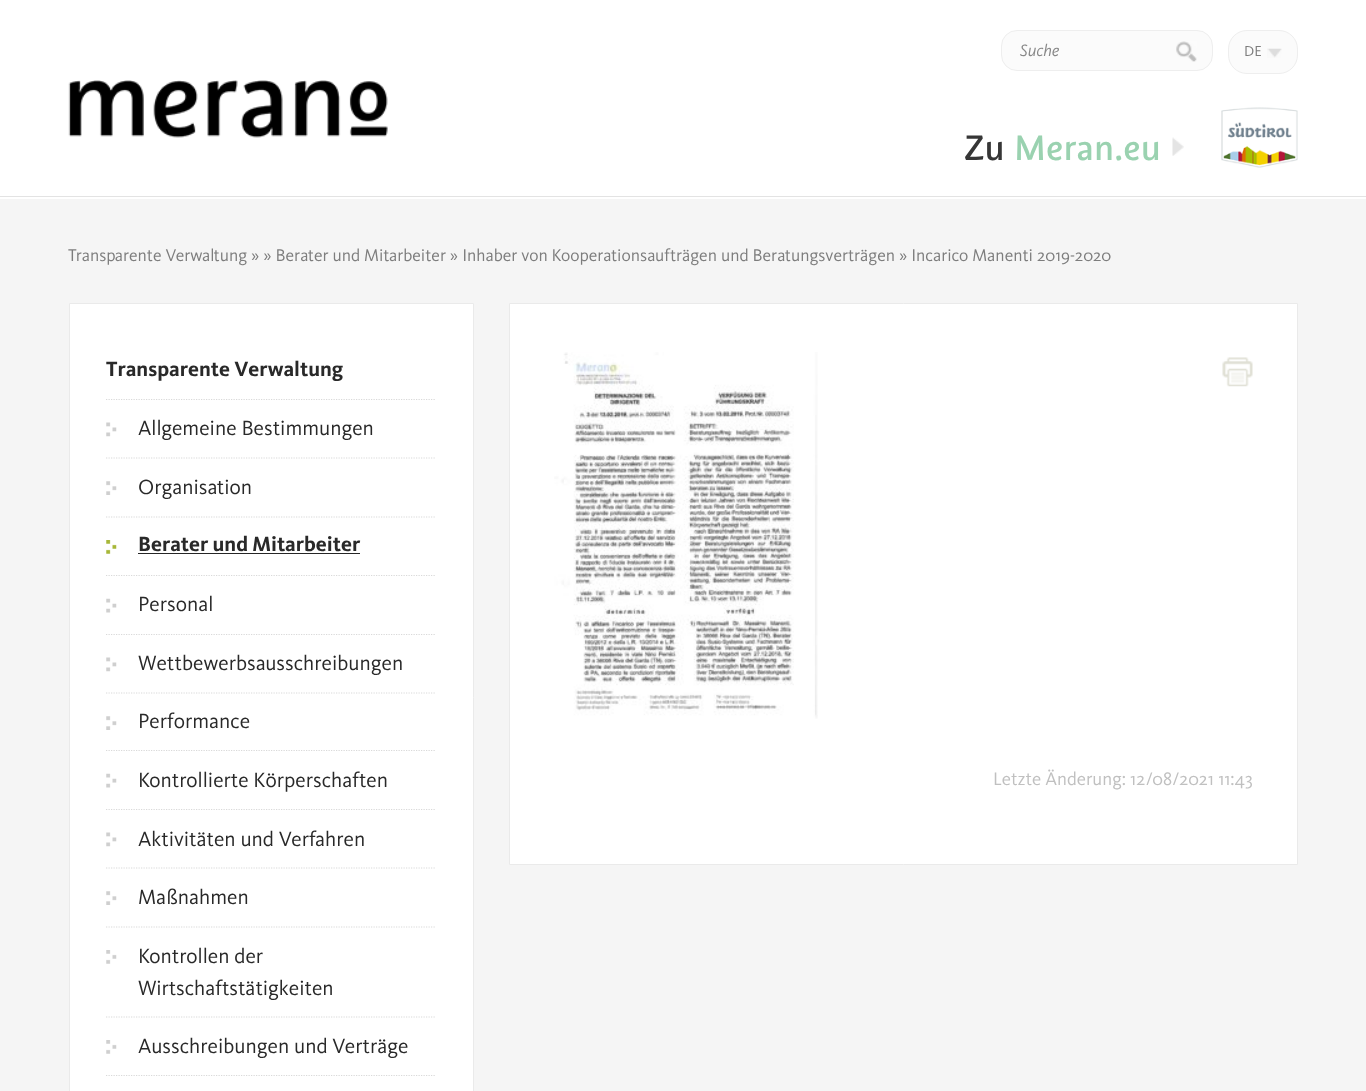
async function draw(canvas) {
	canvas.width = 1366;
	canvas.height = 1091;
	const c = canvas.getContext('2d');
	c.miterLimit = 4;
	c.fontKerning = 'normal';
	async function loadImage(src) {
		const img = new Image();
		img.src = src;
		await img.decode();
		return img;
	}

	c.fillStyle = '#fff';
	c.fillRect(0, 0, 1366, 1091);
	c.fillStyle = '#e3e3e3';
	c.fillRect(0, 196, 1366, 1);
	c.fillStyle = '#fbfbfb';
	c.beginPath();
	c.roundRect(1001.5, 30.5, 211, 40, 15.5);
	c.fill();
	c.strokeStyle = '#eee';
	c.stroke();
	c.font = 'italic 17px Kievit';
	c.fillStyle = '#888';
	c.fillText('Suche', 1020, 56);
	c.drawImage(await loadImage('img1.png'), 1176, 41, 21, 21);
	c.fillStyle = '#fbfbfb';
	c.beginPath();
	c.roundRect(1228.5, 30.5, 69, 43, 18.5);
	c.fill();
	c.stroke();
	c.drawImage(await loadImage('img2.png'), 1267, 48, 15, 10);
	c.font = '15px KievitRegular';
	c.fillStyle = '#7d7d7d';
	c.fillText('DE', 1244, 56);
	c.drawImage(await loadImage('img3.png'), 68, 80, 320, 58);
	c.drawImage(await loadImage('img4.png'), 1172, 137, 12, 19);
	c.font = '37.5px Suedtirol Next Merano';
	c.fillStyle = '#363636';
	c.fillText('Zu', 964, 160);
	c.fillStyle = '#9ad2b0';
	c.fillText('Meran.eu', 1014, 160);
	c.drawImage(await loadImage('img5.png'), 1221, 107, 77, 61);
	c.fillStyle = '#f5f5f5';
	c.fillRect(0, 199, 1366, 892);
	c.font = '17.5px KievitRegular';
	c.fillStyle = '#7d7d7d';
	c.fillText('Transparente Verwaltung » » Berater und Mitarbeiter » Inhaber von Kooperationsaufträgen und Beratungsverträgen » Incarico Manenti 2019-2020', 68, 261);
	c.fillStyle = '#fff';
	c.beginPath();
	c.rect(69.5, 303.5, 404, 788);
	c.fill();
	c.strokeStyle = '#eaeaea';
	c.stroke();
	c.beginPath();
	c.moveTo(106, 399.5);
	c.lineTo(436, 399.5);
	c.strokeStyle = '#d9d9d9';
	c.lineWidth = 1.2;
	c.setLineDash([1.25, 1.25]);
	c.stroke();
	c.font = 'bold 21.25px Kievit';
	c.fillStyle = '#292929';
	c.fillText('Transparente Verwaltung', 106, 376);
	c.drawImage(await loadImage('img6.png'), 106, 422, 11, 15);
	c.beginPath();
	c.moveTo(106, 458);
	c.lineTo(436, 458);
	c.stroke();
	c.font = '21.25px KievitRegular';
	c.fillText('Allgemeine Bestimmungen', 138, 435);
	c.drawImage(await loadImage('img7.png'), 106, 481, 11, 14);
	c.beginPath();
	c.moveTo(106, 517);
	c.lineTo(436, 517);
	c.stroke();
	c.fillText('Organisation', 138, 494);
	c.drawImage(await loadImage('img8.png'), 106, 540, 11, 14);
	c.beginPath();
	c.moveTo(106, 575.5);
	c.lineTo(436, 575.5);
	c.stroke();
	c.font = 'bold 21.25px Kievit';
	c.fillText('Berater und Mitarbeiter', 138, 551);
	c.fillStyle = '#262626';
	c.fillRect(138, 553, 222, 1);
	c.drawImage(await loadImage('img9.png'), 106, 598, 11, 15);
	c.beginPath();
	c.moveTo(106, 634.5);
	c.lineTo(436, 634.5);
	c.stroke();
	c.font = '21.25px KievitRegular';
	c.fillStyle = '#292929';
	c.fillText('Personal', 138, 611);
	c.drawImage(await loadImage('img6.png'), 106, 657, 11, 15);
	c.beginPath();
	c.moveTo(106, 693);
	c.lineTo(436, 693);
	c.stroke();
	c.fillText('Wettbewerbsausschreibungen', 138, 670);
	c.drawImage(await loadImage('img7.png'), 106, 716, 11, 14);
	c.beginPath();
	c.moveTo(106, 750.5);
	c.lineTo(436, 750.5);
	c.stroke();
	c.fillText('Performance', 138, 728);
	c.drawImage(await loadImage('img10.png'), 106, 773, 11, 15);
	c.beginPath();
	c.moveTo(106, 809.5);
	c.lineTo(436, 809.5);
	c.stroke();
	c.fillText('Kontrollierte Körperschaften', 138, 787);
	c.drawImage(await loadImage('img6.png'), 106, 832, 11, 15);
	c.beginPath();
	c.moveTo(106, 868);
	c.lineTo(436, 868);
	c.stroke();
	c.fillText('Aktivitäten und Verfahren', 138, 846);
	c.drawImage(await loadImage('img7.png'), 106, 891, 11, 14);
	c.beginPath();
	c.moveTo(106, 927);
	c.lineTo(436, 927);
	c.stroke();
	c.fillText('Maßnahmen', 138, 904);
	c.drawImage(await loadImage('img11.png'), 106, 950, 11, 14);
	c.beginPath();
	c.moveTo(106, 1017);
	c.lineTo(436, 1017);
	c.stroke();
	c.fillText('Kontrollen der', 138, 963);
	c.fillText('Wirtschaftstätigkeiten', 138, 995);
	c.drawImage(await loadImage('img11.png'), 106, 1040, 11, 14);
	c.beginPath();
	c.moveTo(106, 1075.5);
	c.lineTo(436, 1075.5);
	c.stroke();
	c.fillText('Ausschreibungen und Verträge', 138, 1053);
	c.fillStyle = '#fff';
	c.beginPath();
	c.rect(509.5, 303.5, 788, 561);
	c.fill();
	c.strokeStyle = '#eaeaea';
	c.lineWidth = 1;
	c.setLineDash([]);
	c.stroke();
	c.drawImage(await loadImage('img12.png'), 554, 352, 264, 367);
	c.drawImage(await loadImage('img13.png'), 1222, 357, 31, 30);
	c.font = '18.75px KievitRegular';
	c.fillStyle = '#c0c0c0';
	c.fillText('Letzte Änderung: 12/08/2021 11:43', 993, 785);
}

draw(document.querySelector('canvas'));
